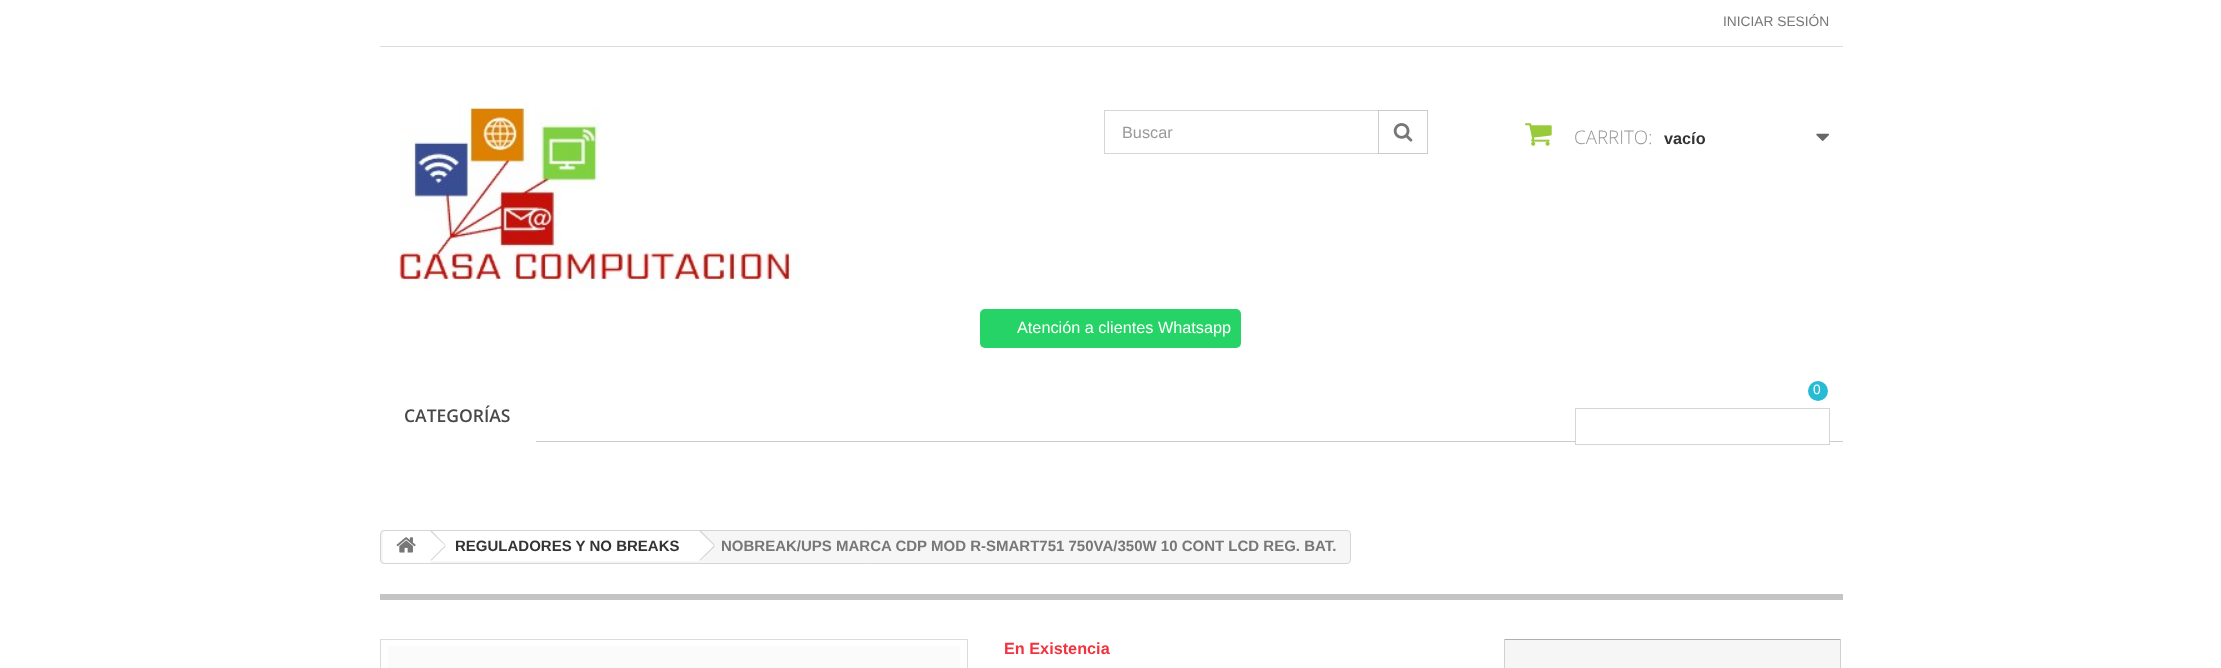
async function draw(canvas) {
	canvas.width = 2221;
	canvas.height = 668;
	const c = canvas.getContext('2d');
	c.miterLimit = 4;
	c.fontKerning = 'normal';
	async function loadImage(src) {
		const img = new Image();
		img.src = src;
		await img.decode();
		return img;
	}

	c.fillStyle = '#fff';
	c.fillRect(0, 0, 2221, 668);
	c.fillStyle = '#ddd';
	c.fillRect(380, 46, 1463, 1);
	c.font = '13.75px Liberation Sans';
	c.fillStyle = '#777';
	c.fillText('INICIAR SESIÓN', 1723, 26);
	c.drawImage(await loadImage('img1.png'), 399, 107, 401, 182);
	c.strokeStyle = '#d6d4d4';
	c.strokeRect(1104.5, 110.5, 323, 43);
	c.font = '16.25px Liberation Sans';
	c.fillStyle = '#999';
	c.fillText('Buscar', 1122, 138);
	c.strokeStyle = '#ccc';
	c.strokeRect(1378.5, 110.5, 49, 43);
	c.drawImage(await loadImage('img2.png'), 1393, 123, 20, 19);
	c.drawImage(await loadImage('img3.png'), 1525, 123, 27, 23);
	c.font = '300 18.75px Open Sans';
	c.fillText('CARRITO:', 1574, 144);
	c.font = 'bold 16.25px Liberation Sans';
	c.fillStyle = '#333';
	c.fillText('vacío', 1664, 144);
	c.drawImage(await loadImage('img4.png'), 1816, 133, 14, 8);
	c.fillStyle = '#25d366';
	c.beginPath();
	c.roundRect(980, 309, 261, 39, 5);
	c.fill();
	c.font = '16.25px Liberation Sans';
	c.fillStyle = '#fff';
	c.fillText('Atención a clientes Whatsapp', 1017, 333);
	c.fillStyle = '#29bbd4';
	c.beginPath();
	c.arc(1818, 391, 10, 0, 2 * Math.PI);
	c.fill();
	c.font = '13.75px Liberation Sans';
	c.fillStyle = '#fff';
	c.fillText('0', 1813, 394);
	c.fillStyle = '#ccc';
	c.fillRect(536, 441, 1307, 1);
	c.font = '600 17.5px Open Sans';
	c.fillStyle = '#484848';
	c.fillText('CATEGORÍAS', 404, 422);
	c.fillStyle = '#fff';
	c.fillRect(1576, 441, 253, 1);
	c.strokeStyle = '#d6d4d4';
	c.strokeRect(1575.5, 408.5, 254, 36);
	c.fillStyle = '#f6f6f6';
	c.beginPath();
	c.roundRect(380.5, 530.5, 970, 33, 3.5);
	c.fill();
	c.stroke();
	c.fillStyle = '#fff';
	c.beginPath();
	c.roundRect(383, 531, 47, 32, [4, 0, 0, 4]);
	c.fill();
	c.drawImage(await loadImage('img5.png'), 396, 537, 20, 16);
	c.fillRect(430, 531, 269, 30);
	c.fillStyle = '#d6d4d4';
	c.beginPath();
	c.moveTo(431.5, 530.5);
	c.lineTo(445.5, 545);
	c.lineTo(445, 545.5);
	c.lineTo(430.5, 531.5);
	c.closePath();
	c.fill();
	c.beginPath();
	c.moveTo(445, 545.5);
	c.lineTo(445.5, 546.5);
	c.lineTo(431.5, 560.5);
	c.lineTo(430.5, 560);
	c.closePath();
	c.fill();
	c.font = 'bold 15px Liberation Sans';
	c.fillStyle = '#333';
	c.fillText('REGULADORES Y NO BREAKS', 455, 551);
	c.fillStyle = '#fff';
	c.beginPath();
	c.moveTo(701.5, 531.5);
	c.lineTo(701, 531);
	c.lineTo(698.5, 531);
	c.lineTo(698, 531.5);
	c.lineTo(685.5, 544);
	c.bezierCurveTo(684.5, 545, 684.5, 546.5, 685.5, 547.5);
	c.lineTo(698, 560);
	c.bezierCurveTo(699, 561, 700.5, 561, 701.5, 560);
	c.lineTo(714, 547.5);
	c.bezierCurveTo(715, 546.5, 715, 545, 714, 544);
	c.closePath();
	c.fill();
	c.fillStyle = '#d6d4d4';
	c.beginPath();
	c.moveTo(700.5, 530.5);
	c.lineTo(715, 545);
	c.lineTo(714, 545.5);
	c.lineTo(699.5, 531.5);
	c.closePath();
	c.fill();
	c.beginPath();
	c.moveTo(714, 545.5);
	c.lineTo(715, 546.5);
	c.lineTo(700.5, 560.5);
	c.lineTo(699.5, 560);
	c.closePath();
	c.fill();
	c.fillStyle = '#777';
	c.fillText('NOBREAK/UPS MARCA CDP MOD R-SMART751 750VA/350W 10 CONT LCD REG. BAT.', 721, 551);
	c.fillStyle = '#c4c4c4';
	c.fillRect(380, 594, 1463, 6);
	c.strokeStyle = '#dbdbdb';
	c.strokeRect(380.5, 639.5, 587, 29);
	c.fillStyle = '#fbfbfb';
	c.fillRect(388, 646, 572, 22);
	c.font = 'bold 16.25px Liberation Sans';
	c.fillStyle = '#f13340';
	c.fillText('En Existencia', 1004, 654);
	for (const [x, y, w, h, color] of [
		[1505, 640, 335, 28, '#f6f6f6'],
		[1504, 639, 337, 1, '#b0afaf'],
		[1840, 639, 1, 29, '#d2d0d0'],
		[1504, 639, 1, 29, '#d2d0d0'],
	]) {
		c.fillStyle = color;
		c.fillRect(x, y, w, h);
	}
}

draw(document.querySelector('canvas'));
